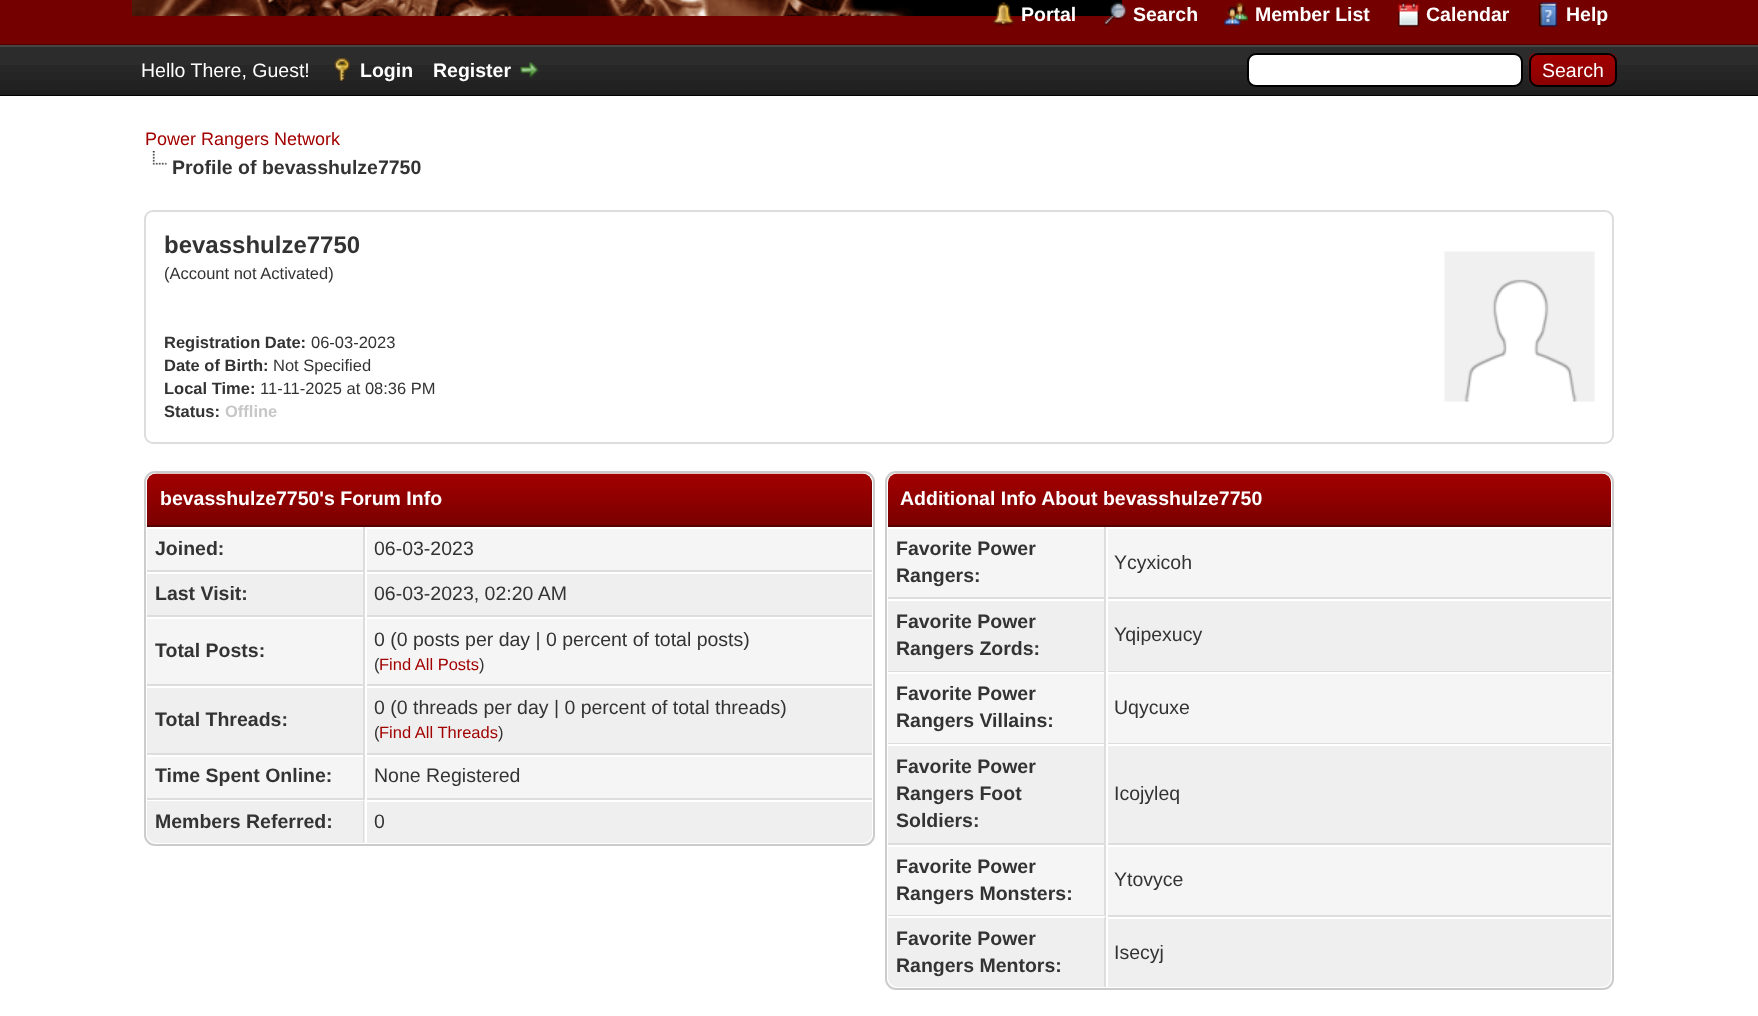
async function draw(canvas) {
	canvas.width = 1758;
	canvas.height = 1016;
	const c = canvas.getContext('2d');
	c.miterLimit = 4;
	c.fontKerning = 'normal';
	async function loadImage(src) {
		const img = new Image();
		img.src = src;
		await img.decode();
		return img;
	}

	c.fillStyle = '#750000';
	c.fillRect(0, 0, 1758, 1016);
	c.fillStyle = '#500';
	c.fillRect(0, 44, 1758, 1);
	c.drawImage(await loadImage('img1.png'), 132, 0, 990, 16);
	c.drawImage(await loadImage('img2.png'), 993, 2, 22, 25);
	c.font = 'bold 19.5px Liberation Sans';
	c.fillStyle = '#fff';
	c.fillText('Portal', 1021, 21);
	c.drawImage(await loadImage('img3.png'), 1104, 2, 23, 24);
	c.fillText('Search', 1133, 21);
	c.drawImage(await loadImage('img4.png'), 1224, 2, 24, 24);
	c.fillText('Member List', 1255, 21);
	c.drawImage(await loadImage('img5.png'), 1397, 2, 23, 25);
	c.fillText('Calendar', 1426, 21);
	c.drawImage(await loadImage('img6.png'), 1538, 2, 20, 25);
	c.fillText('Help', 1566, 21);
	c.drawImage(await loadImage('img7.png'), 0, 47, 1758, 48);
	c.fillStyle = '#444';
	c.fillRect(0, 45, 1758, 2);
	c.fillStyle = '#000';
	c.fillRect(0, 95, 1758, 1);
	c.font = '19.5px Liberation Sans';
	c.fillStyle = '#fff';
	c.fillText('Hello There, Guest!', 141, 77);
	c.drawImage(await loadImage('img8.png'), 334, 58, 16, 23);
	c.font = 'bold 19.5px Liberation Sans';
	c.fillText('Login', 360, 77);
	c.fillText('Register', 433, 77);
	c.drawImage(await loadImage('img9.png'), 520, 62, 19, 16);
	c.beginPath();
	c.roundRect(1248, 54, 274, 32, 8);
	c.fill();
	c.strokeStyle = '#000';
	c.lineWidth = 2;
	c.stroke();
	c.drawImage(await loadImage('img10.png'), 1528, 53, 89, 34);
	c.beginPath();
	c.roundRect(1530, 54, 86, 32, 8);
	c.stroke();
	c.font = '19.5px Liberation Sans';
	c.fillText('Search', 1542, 77);
	c.fillRect(0, 96, 1758, 920);
	c.font = '18px Liberation Sans';
	c.fillStyle = '#a20000';
	c.fillText('Power Rangers Network', 145, 145);
	c.drawImage(await loadImage('img11.png'), 152, 151, 15, 14);
	c.font = 'bold 19.5px Liberation Sans';
	c.fillStyle = '#333';
	c.fillText('Profile of bevasshulze7750', 172, 174);
	c.beginPath();
	c.roundRect(145, 211, 1468, 232, 8);
	c.strokeStyle = '#ddd';
	c.stroke();
	c.font = 'bold 24px Liberation Sans';
	c.fillText('bevasshulze7750', 164, 253);
	c.font = '16.5px Liberation Sans';
	c.fillText('(Account not Activated)', 164, 279);
	c.font = 'bold 16.5px Liberation Sans';
	c.fillText('Registration Date:', 164, 348);
	c.font = '16.5px Liberation Sans';
	c.fillText('06-03-2023', 311, 348);
	c.font = 'bold 16.5px Liberation Sans';
	c.fillText('Date of Birth:', 164, 371);
	c.font = '16.5px Liberation Sans';
	c.fillText('Not Specified', 273, 371);
	c.font = 'bold 16.5px Liberation Sans';
	c.fillText('Local Time:', 164, 394);
	c.font = '16.5px Liberation Sans';
	c.fillText('11-11-2025 at 08:36 PM', 260, 394);
	c.font = 'bold 16.5px Liberation Sans';
	c.fillText('Status:', 164, 417);
	c.fillStyle = '#c7c7c7';
	c.fillText('Offline', 225, 417);
	c.drawImage(await loadImage('img12.png'), 1444, 251, 151, 151);
	c.beginPath();
	c.roundRect(145, 472, 729, 373, 10);
	c.strokeStyle = '#ccc';
	c.stroke();
	c.fillStyle = '#750000';
	c.beginPath();
	c.roundRect(147, 474, 725, 53, [9, 9, 0, 0]);
	c.fill();
	c.drawImage(await loadImage('img13.png'), 147, 473, 725, 52);
	c.fillStyle = '#500';
	c.fillRect(147, 525, 725, 2);
	c.font = 'bold 19.5px Liberation Sans';
	c.fillStyle = '#fff';
	c.fillText('bevasshulze7750\'s Forum Info', 160, 505);
	for (const [x, y, w, h, color] of [
		[147, 529, 216, 41, '#f5f5f5'],
		[363, 527, 2, 273, '#ddd'],
		[147, 570, 725, 2, '#ddd'],
	]) {
		c.fillStyle = color;
		c.fillRect(x, y, w, h);
	}
	c.fillStyle = '#333';
	c.fillText('Joined:', 155, 555);
	c.fillStyle = '#f5f5f5';
	c.fillRect(367, 529, 505, 41);
	c.fillStyle = '#fff';
	c.fillRect(365, 570, 2, 2);
	c.font = '19.5px Liberation Sans';
	c.fillStyle = '#333';
	c.fillText('06-03-2023', 374, 555);
	c.fillStyle = '#efefef';
	c.fillRect(147, 574, 216, 41);
	c.fillStyle = '#ddd';
	c.fillRect(147, 615, 725, 2);
	c.font = 'bold 19.5px Liberation Sans';
	c.fillStyle = '#333';
	c.fillText('Last Visit:', 155, 600);
	c.fillStyle = '#efefef';
	c.fillRect(367, 574, 505, 41);
	c.fillStyle = '#fff';
	c.fillRect(365, 615, 2, 2);
	c.font = '19.5px Liberation Sans';
	c.fillStyle = '#333';
	c.fillText('06-03-2023, 02:20 AM', 374, 600);
	c.fillStyle = '#f5f5f5';
	c.fillRect(147, 619, 216, 65);
	c.fillStyle = '#ddd';
	c.fillRect(147, 684, 725, 2);
	c.font = 'bold 19.5px Liberation Sans';
	c.fillStyle = '#333';
	c.fillText('Total Posts:', 155, 657);
	c.fillStyle = '#f5f5f5';
	c.fillRect(367, 619, 505, 65);
	c.fillStyle = '#fff';
	c.fillRect(365, 684, 2, 2);
	c.font = '19.5px Liberation Sans';
	c.fillStyle = '#333';
	c.fillText('0 (0 posts per day | 0 percent of total posts)', 374, 646);
	c.font = '16.5px Liberation Sans';
	c.fillText('(', 374, 670);
	c.fillStyle = '#a20000';
	c.fillText('Find All Posts', 379, 670);
	c.fillStyle = '#333';
	c.fillText(')', 479, 670);
	c.fillStyle = '#efefef';
	c.fillRect(147, 688, 216, 65);
	c.fillStyle = '#ddd';
	c.fillRect(147, 753, 725, 2);
	c.font = 'bold 19.5px Liberation Sans';
	c.fillStyle = '#333';
	c.fillText('Total Threads:', 155, 726);
	c.fillStyle = '#efefef';
	c.fillRect(367, 688, 505, 65);
	c.fillStyle = '#fff';
	c.fillRect(365, 753, 2, 2);
	c.font = '19.5px Liberation Sans';
	c.fillStyle = '#333';
	c.fillText('0 (0 threads per day | 0 percent of total threads)', 374, 714);
	c.font = '16.5px Liberation Sans';
	c.fillText('(', 374, 738);
	c.fillStyle = '#a20000';
	c.fillText('Find All Threads', 379, 738);
	c.fillStyle = '#333';
	c.fillText(')', 498, 738);
	c.fillStyle = '#f5f5f5';
	c.fillRect(147, 757, 216, 41);
	c.fillStyle = '#ddd';
	c.fillRect(147, 798, 725, 2);
	c.font = 'bold 19.5px Liberation Sans';
	c.fillStyle = '#333';
	c.fillText('Time Spent Online:', 155, 782);
	c.fillStyle = '#f5f5f5';
	c.fillRect(367, 757, 505, 41);
	c.fillStyle = '#fff';
	c.fillRect(365, 798, 2, 2);
	c.font = '19.5px Liberation Sans';
	c.fillStyle = '#333';
	c.fillText('None Registered', 374, 782);
	c.fillStyle = '#efefef';
	c.beginPath();
	c.roundRect(147, 800, 218, 43, [0, 0, 0, 9]);
	c.fill();
	c.fillStyle = '#fff';
	c.beginPath();
	c.moveTo(147, 801);
	c.lineTo(363, 801);
	c.lineTo(364, 800);
	c.lineTo(147, 800);
	c.closePath();
	c.fill();
	c.fillStyle = '#ddd';
	c.beginPath();
	c.moveTo(363, 843);
	c.lineTo(363, 801);
	c.lineTo(364, 800);
	c.lineTo(364, 843);
	c.closePath();
	c.fill();
	c.font = 'bold 19.5px Liberation Sans';
	c.fillStyle = '#333';
	c.fillText('Members Referred:', 155, 828);
	c.fillStyle = '#efefef';
	c.beginPath();
	c.roundRect(365, 800, 507, 43, [0, 0, 9, 0]);
	c.fill();
	c.fillStyle = '#fff';
	c.fillRect(365, 800, 507, 2);
	c.fillRect(365, 800, 2, 43);
	c.font = '19.5px Liberation Sans';
	c.fillStyle = '#333';
	c.fillText('0', 374, 828);
	c.beginPath();
	c.roundRect(886, 472, 727, 517, 10);
	c.stroke();
	c.drawImage(await loadImage('img14.png'), 888, 473, 723, 52);
	c.fillStyle = '#500';
	c.fillRect(888, 525, 723, 2);
	c.font = 'bold 19.5px Liberation Sans';
	c.fillStyle = '#fff';
	c.fillText('Additional Info About bevasshulze7750', 900, 505);
	for (const [x, y, w, h, color] of [
		[888, 529, 216, 68, '#f5f5f5'],
		[1104, 527, 2, 390, '#ddd'],
		[888, 597, 723, 2, '#ddd'],
	]) {
		c.fillStyle = color;
		c.fillRect(x, y, w, h);
	}
	c.fillStyle = '#333';
	c.fillText('Favorite Power', 896, 555);
	c.fillText('Rangers:', 896, 582);
	c.fillStyle = '#f5f5f5';
	c.fillRect(1108, 529, 503, 68);
	c.fillStyle = '#fff';
	c.fillRect(1106, 597, 2, 2);
	c.font = '19.5px Liberation Sans';
	c.fillStyle = '#333';
	c.fillText('Ycyxicoh', 1114, 569);
	c.fillStyle = '#efefef';
	c.fillRect(888, 601, 216, 70);
	c.fillStyle = '#ddd';
	c.fillRect(888, 671, 723, 1);
	c.font = 'bold 19.5px Liberation Sans';
	c.fillStyle = '#333';
	c.fillText('Favorite Power', 896, 628);
	c.fillText('Rangers Zords:', 896, 655);
	c.fillStyle = '#efefef';
	c.fillRect(1108, 601, 503, 70);
	c.fillStyle = '#fff';
	c.fillRect(1106, 671, 2, 1);
	c.font = '19.5px Liberation Sans';
	c.fillStyle = '#333';
	c.fillText('Yqipexucy', 1114, 641);
	c.fillStyle = '#f5f5f5';
	c.fillRect(888, 674, 216, 69);
	c.fillStyle = '#ddd';
	c.fillRect(888, 743, 723, 1);
	c.font = 'bold 19.5px Liberation Sans';
	c.fillStyle = '#333';
	c.fillText('Favorite Power', 896, 700);
	c.fillText('Rangers Villains:', 896, 727);
	c.fillStyle = '#f5f5f5';
	c.fillRect(1108, 674, 503, 69);
	c.fillStyle = '#fff';
	c.fillRect(1106, 743, 2, 1);
	c.font = '19.5px Liberation Sans';
	c.fillStyle = '#333';
	c.fillText('Uqycuxe', 1114, 714);
	c.fillStyle = '#efefef';
	c.fillRect(888, 746, 216, 97);
	c.fillStyle = '#ddd';
	c.fillRect(888, 843, 723, 2);
	c.font = 'bold 19.5px Liberation Sans';
	c.fillStyle = '#333';
	for (const [text, x, y] of [
		['Favorite Power', 896, 773],
		['Rangers Foot', 896, 800],
		['Soldiers:', 896, 827],
	]) {
		c.fillText(text, x, y);
	}
	c.fillStyle = '#efefef';
	c.fillRect(1108, 746, 503, 97);
	c.fillStyle = '#fff';
	c.fillRect(1106, 843, 2, 2);
	c.font = '19.5px Liberation Sans';
	c.fillStyle = '#333';
	c.fillText('Icojyleq', 1114, 800);
	c.fillStyle = '#f5f5f5';
	c.fillRect(888, 847, 216, 68);
	c.fillStyle = '#ddd';
	c.fillRect(888, 915, 723, 2);
	c.font = 'bold 19.5px Liberation Sans';
	c.fillStyle = '#333';
	c.fillText('Favorite Power', 896, 873);
	c.fillText('Rangers Monsters:', 896, 900);
	c.fillStyle = '#f5f5f5';
	c.fillRect(1108, 847, 503, 68);
	c.fillStyle = '#fff';
	c.fillRect(1106, 915, 2, 2);
	c.font = '19.5px Liberation Sans';
	c.fillStyle = '#333';
	c.fillText('Ytovyce', 1114, 886);
	c.fillStyle = '#efefef';
	c.beginPath();
	c.roundRect(888, 917, 218, 70, [0, 0, 0, 9]);
	c.fill();
	c.fillStyle = '#fff';
	c.beginPath();
	c.moveTo(888, 918);
	c.lineTo(1104, 918);
	c.lineTo(1106, 916);
	c.lineTo(888, 916);
	c.closePath();
	c.fill();
	c.fillStyle = '#ddd';
	c.beginPath();
	c.moveTo(1106, 916);
	c.lineTo(1104, 918);
	c.lineTo(1104, 987);
	c.lineTo(1106, 987);
	c.closePath();
	c.fill();
	c.font = 'bold 19.5px Liberation Sans';
	c.fillStyle = '#333';
	c.fillText('Favorite Power', 896, 945);
	c.fillText('Rangers Mentors:', 896, 972);
	c.fillStyle = '#efefef';
	c.beginPath();
	c.roundRect(1106, 917, 505, 70, [0, 0, 9, 0]);
	c.fill();
	c.fillStyle = '#fff';
	c.fillRect(1106, 917, 505, 2);
	c.fillRect(1106, 917, 2, 70);
	c.font = '19.5px Liberation Sans';
	c.fillStyle = '#333';
	c.fillText('Isecyj', 1114, 959);
}

draw(document.querySelector('canvas'));
